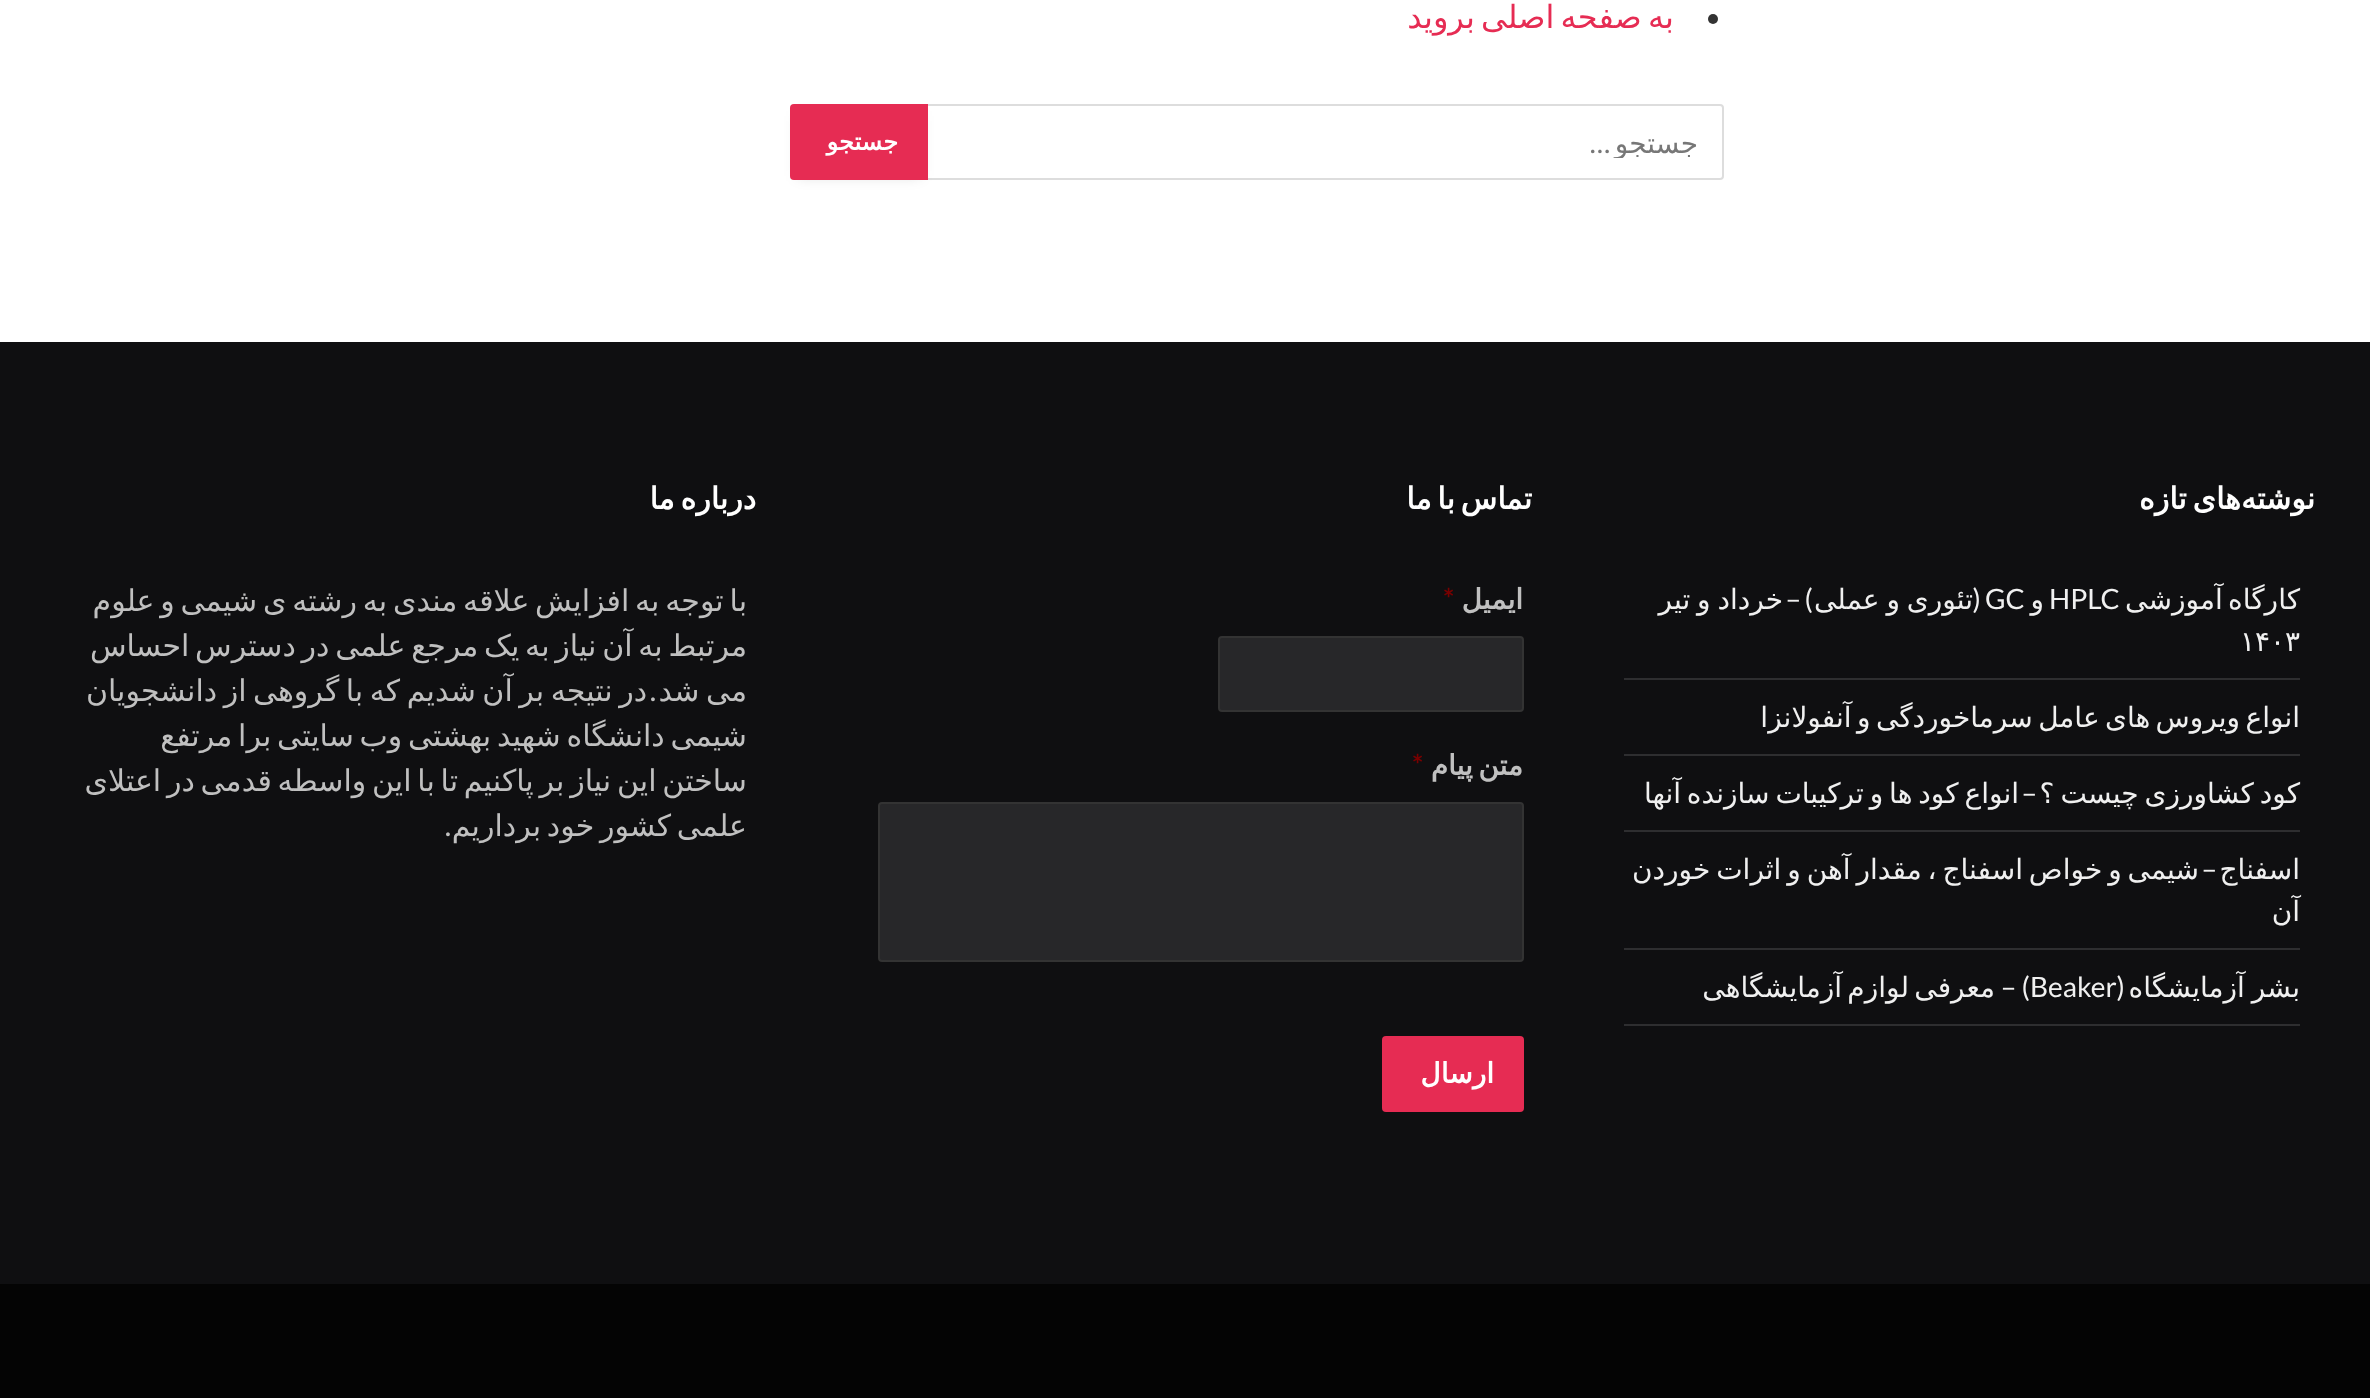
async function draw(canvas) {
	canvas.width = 2370;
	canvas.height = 1398;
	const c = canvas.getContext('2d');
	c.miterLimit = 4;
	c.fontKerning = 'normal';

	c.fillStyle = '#fff';
	c.fillRect(0, 0, 2370, 1398);
	c.fillStyle = '#333';
	c.beginPath();
	c.arc(1713, 19, 5, 0, 2 * Math.PI);
	c.fill();
	c.wordSpacing = '-4px';
	c.direction = 'rtl';
	c.font = '32px DejaVu Sans';
	c.fillStyle = '#e62c53';
	c.fillText('به صفحه اصلی بروید', 1674, 28);
	c.beginPath();
	c.roundRect(925, 105, 798, 74, 3);
	c.strokeStyle = '#ddd';
	c.lineWidth = 2;
	c.stroke();
	c.save();
	c.beginPath();
	c.rect(958, 124, 740, 34);
	c.clip();
	c.wordSpacing = '0px';
	c.font = '28px DejaVu Sans';
	c.fillStyle = '#777';
	c.fillText('جستجو', 1698, 153);
	c.restore();
	c.wordSpacing = '0px';
	c.font = '28px Lato';
	c.fillStyle = '#777';
	c.fillText('…', 1610, 153);
	c.fillStyle = '#00000029';
	c.filter = 'blur(7px)';
	c.beginPath();
	c.rect(798, 116, 122, 60);
	c.fill();
	c.filter = 'none';
	c.fillStyle = '#e62c53';
	c.beginPath();
	c.roundRect(790, 104, 138, 76, [4, 0, 0, 4]);
	c.fill();
	c.letterSpacing = '0.75px';
	c.font = 'bold 24px DejaVu Sans';
	c.fillStyle = '#fff';
	c.fillText('جستجو', 898, 150);
	c.fillStyle = '#0f0f11';
	c.fillRect(0, 342, 2370, 942);
	c.letterSpacing = '1.25px';
	c.wordSpacing = '-5px';
	c.font = 'bold 30px DejaVu Sans';
	c.fillStyle = '#fff';
	c.fillText('نوشته‌های تازه', 2315, 509);
	c.fillStyle = '#2e2e30';
	c.fillRect(1624, 678, 676, 2);
	c.letterSpacing = '0px';
	c.wordSpacing = '-3.5px';
	c.font = '28px DejaVu Sans';
	c.fillStyle = '#f0f0f0';
	c.fillText('کارگاه آموزشی', 2300, 609);
	c.wordSpacing = '0px';
	c.direction = 'ltr';
	c.font = '28px Lato';
	c.fillText('HPLC', 2049, 609);
	c.direction = 'rtl';
	c.font = '28px DejaVu Sans';
	c.fillText('و', 2044, 609);
	c.direction = 'ltr';
	c.font = '28px Lato';
	c.fillText('GC', 1985, 609);
	c.direction = 'rtl';
	c.fillText('(', 1981, 609);
	c.wordSpacing = '-2px';
	c.font = '28px DejaVu Sans';
	c.fillText('تئوری و عملی', 1973, 609);
	c.wordSpacing = '0px';
	c.font = '28px Lato';
	c.fillText(')', 1813, 609);
	c.fillText('–', 1801, 609);
	c.wordSpacing = '-2px';
	c.font = '28px DejaVu Sans';
	c.fillText('خرداد و تیر', 1783, 609);
	c.wordSpacing = '0px';
	c.direction = 'ltr';
	c.fillText('۱۴۰۳', 2240, 651);
	c.fillStyle = '#2e2e30';
	c.fillRect(1624, 754, 676, 2);
	c.wordSpacing = '-3.5px';
	c.direction = 'rtl';
	c.fillStyle = '#f0f0f0';
	c.fillText('انواع ویروس های عامل سرماخوردگی و آنفولانزا', 2300, 727);
	c.fillStyle = '#2e2e30';
	c.fillRect(1624, 830, 676, 2);
	c.wordSpacing = '-3px';
	c.fillStyle = '#f0f0f0';
	c.fillText('کود کشاورزی چیست ؟', 2300, 803);
	c.wordSpacing = '0px';
	c.font = '28px Lato';
	c.fillText('–', 2037, 803);
	c.wordSpacing = '-3px';
	c.font = '28px DejaVu Sans';
	c.fillText('انواع کود ها و ترکیبات سازنده آنها', 2019, 803);
	c.fillStyle = '#2e2e30';
	c.fillRect(1624, 948, 676, 2);
	c.wordSpacing = '0px';
	c.fillStyle = '#f0f0f0';
	c.fillText('اسفناج', 2300, 879);
	c.font = '28px Lato';
	c.fillText('–', 2217, 879);
	c.wordSpacing = '-3px';
	c.font = '28px DejaVu Sans';
	c.fillText('شیمی و خواص اسفناج ، مقدار آهن و اثرات خوردن', 2199, 879);
	c.wordSpacing = '0px';
	c.fillText('آن', 2300, 921);
	c.fillStyle = '#2e2e30';
	c.fillRect(1624, 1024, 676, 2);
	c.wordSpacing = '-2px';
	c.fillStyle = '#f0f0f0';
	c.fillText('بشر آزمایشگاه', 2300, 997);
	c.wordSpacing = '0px';
	c.font = '28px Lato';
	c.fillText('(', 2125, 997);
	c.direction = 'ltr';
	c.fillText('Beaker', 2030, 997);
	c.direction = 'rtl';
	c.fillText(') –', 2030, 997);
	c.font = '28px DejaVu Sans';
	for (const [text, x, y] of [
		['معرفی', 1995, 997],
		['لوازم', 1909, 997],
		['آزمایشگاهی', 1842, 997],
	]) {
		c.fillText(text, x, y);
	}
	c.letterSpacing = '1.25px';
	c.wordSpacing = '-5px';
	c.font = 'bold 30px DejaVu Sans';
	c.fillStyle = '#fff';
	c.fillText('تماس با ما', 1532, 509);
	c.letterSpacing = '0px';
	c.wordSpacing = '0px';
	c.font = 'bold 28px DejaVu Sans';
	c.fillStyle = '#c0c0c0';
	c.fillText('ایمیل', 1523, 609);
	c.direction = 'ltr';
	c.font = 'bold 28px Lato';
	c.fillStyle = '#790000';
	c.fillText('*', 1443, 609);
	c.fillStyle = '#272729';
	c.beginPath();
	c.roundRect(1219, 637, 304, 74, 3);
	c.fill();
	c.strokeStyle = '#333';
	c.stroke();
	c.wordSpacing = '-3.5px';
	c.direction = 'rtl';
	c.font = 'bold 28px DejaVu Sans';
	c.fillStyle = '#c0c0c0';
	c.fillText('متن پیام', 1523, 775);
	c.wordSpacing = '0px';
	c.direction = 'ltr';
	c.font = 'bold 28px Lato';
	c.fillStyle = '#790000';
	c.fillText('*', 1412, 775);
	c.fillStyle = '#272729';
	c.beginPath();
	c.roundRect(879, 803, 644, 158, 3);
	c.fill();
	c.stroke();
	c.fillStyle = '#e62c53';
	c.beginPath();
	c.roundRect(1382, 1036, 142, 76, 4);
	c.fill();
	c.letterSpacing = '1px';
	c.direction = 'rtl';
	c.font = 'bold 28px DejaVu Sans';
	c.fillStyle = '#fff';
	c.fillText('ارسال', 1494, 1083);
	c.letterSpacing = '1.25px';
	c.wordSpacing = '-5px';
	c.font = 'bold 30px DejaVu Sans';
	c.fillText('درباره ما', 756, 509);
	c.letterSpacing = '0px';
	c.wordSpacing = '-3.75px';
	c.font = '30px DejaVu Sans';
	c.fillStyle = '#c0c0c0';
	c.fillText('با توجه به افزایش علاقه مندی به رشته ی شیمی و علوم', 747, 611);
	c.fillText('مرتبط به آن نیاز به یک مرجع علمی در دسترس احساس', 747, 656);
	c.wordSpacing = '-3px';
	c.fillText('می شد', 747, 701);
	c.wordSpacing = '0px';
	c.font = '30px Lato';
	c.fillText('.', 656, 701);
	c.wordSpacing = '-3px';
	c.font = '30px DejaVu Sans';
	c.fillText('در نتیجه بر آن شدیم که با گروهی از دانشجویان', 647, 701);
	c.wordSpacing = '-3.75px';
	for (const [text, x, y] of [
		['شیمی دانشگاه شهید بهشتی وب سایتی برا مرتفع', 747, 746],
		['ساختن این نیاز بر پاکنیم تا با این واسطه قدمی در اعتلای', 747, 791],
		['علمی کشور خود برداریم', 747, 836],
	]) {
		c.fillText(text, x, y);
	}
	c.wordSpacing = '0px';
	c.font = '30px Lato';
	c.fillText('.', 451, 836);
	c.fillStyle = '#040404';
	c.fillRect(0, 1284, 2370, 114);
}

draw(document.querySelector('canvas'));
